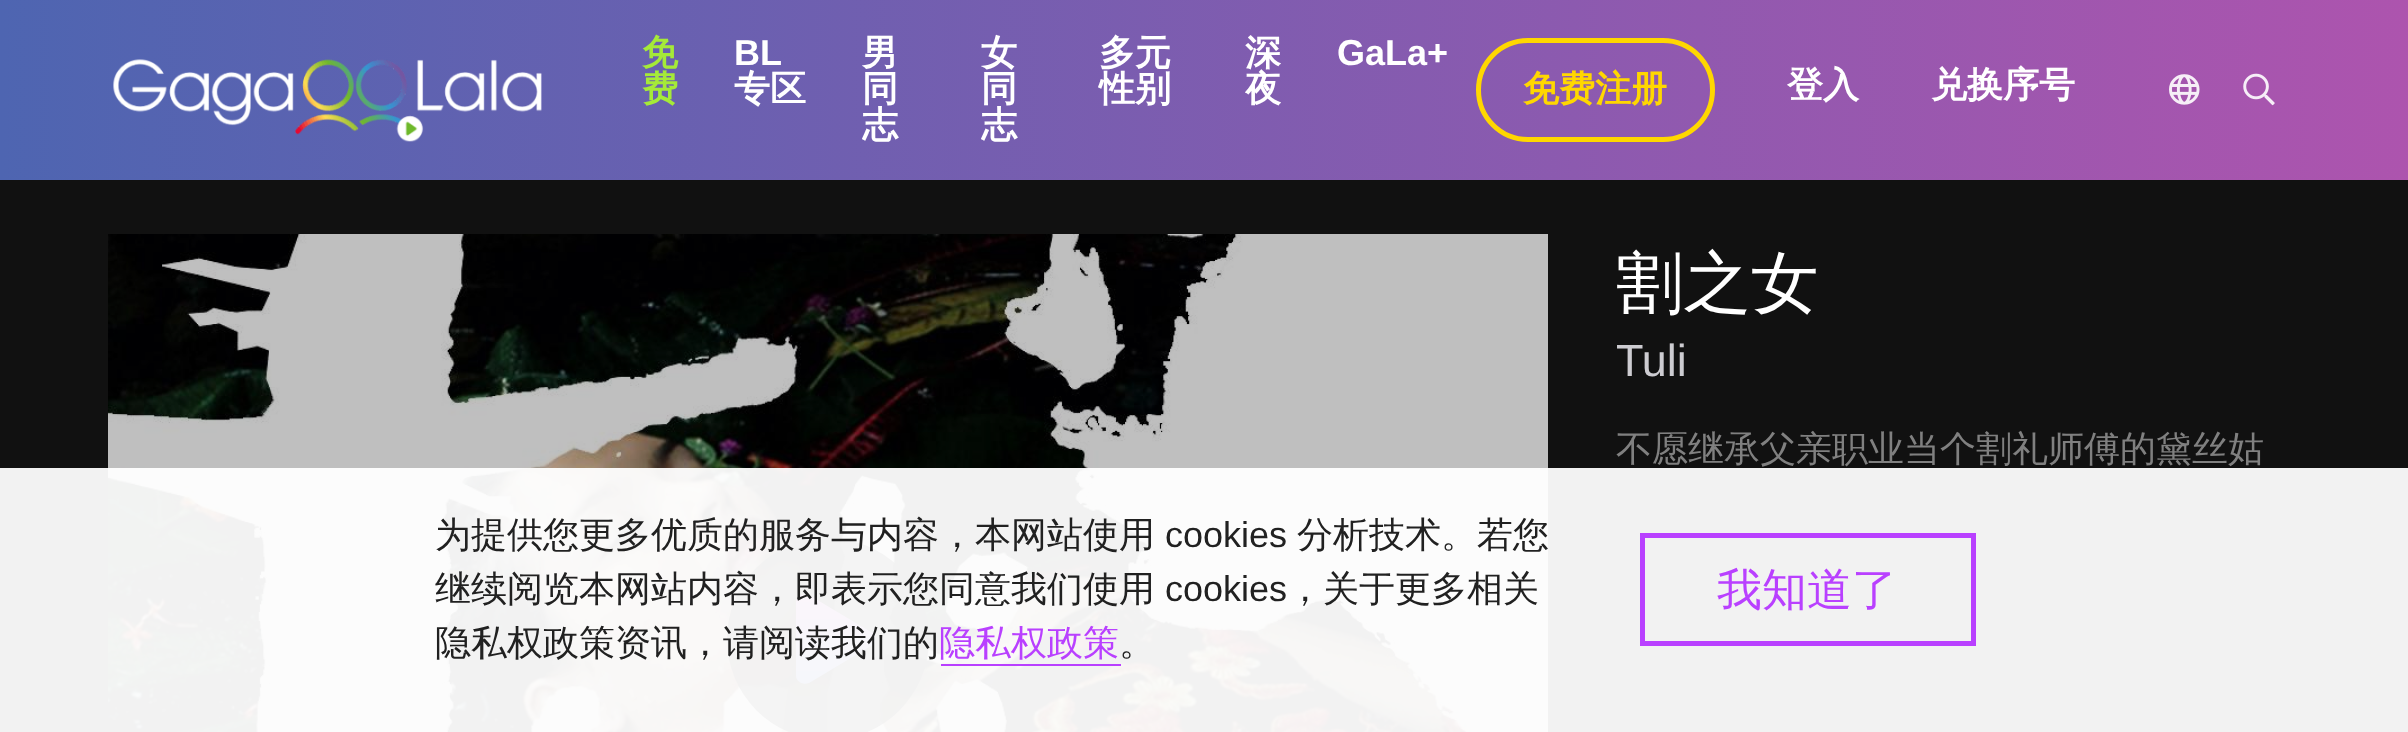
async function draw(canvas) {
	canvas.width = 2408;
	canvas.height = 732;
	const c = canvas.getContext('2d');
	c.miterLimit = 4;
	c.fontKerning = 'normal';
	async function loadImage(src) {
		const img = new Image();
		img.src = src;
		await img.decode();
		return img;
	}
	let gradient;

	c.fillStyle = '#111';
	c.fillRect(0, 0, 2408, 732);
	gradient = c.createLinearGradient(0, 90, 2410, 90);
	gradient.addColorStop(0, '#4e65b1');
	gradient.addColorStop(1, '#ad54ae');
	c.fillStyle = gradient;
	c.fillRect(0, 0, 2408, 180);
	c.drawImage(await loadImage('img1.png'), 113, 59, 429, 83);
	c.font = 'bold 36px WenQuanYi Zen Hei';
	c.fillStyle = '#a5ea38';
	c.fillText('免', 642, 65);
	c.fillText('费', 642, 101);
	c.font = 'bold 36px Liberation Sans';
	c.fillStyle = '#fff';
	c.fillText('BL', 734, 65);
	c.font = 'bold 36px WenQuanYi Zen Hei';
	for (const [text, x, y] of [
		['专区', 734, 101],
		['男', 862, 65],
		['同', 862, 101],
		['志', 862, 137],
		['女', 981, 65],
		['同', 981, 101],
		['志', 981, 137],
		['多元', 1099, 65],
		['性别', 1099, 101],
		['深', 1245, 65],
		['夜', 1245, 101],
	]) {
		c.fillText(text, x, y);
	}
	c.font = 'bold 36px Liberation Sans';
	c.fillText('GaLa+', 1337, 65);
	c.beginPath();
	c.roundRect(1478.5, 40.5, 234, 99, 49.5);
	c.strokeStyle = '#ffd700';
	c.lineWidth = 5;
	c.stroke();
	c.font = 'bold 36px WenQuanYi Zen Hei';
	c.fillStyle = '#ffd700';
	c.fillText('免费注册', 1523, 101);
	c.fillStyle = '#fff';
	c.fillText('登入', 1787, 97);
	c.fillText('兑换序号', 1931, 97);
	c.drawImage(await loadImage('img2.png'), 2169, 74, 31, 31);
	c.drawImage(await loadImage('img3.png'), 2243, 73, 32, 33);
	c.drawImage(await loadImage('img4.png'), 108, 234, 1440, 498);
	c.fillStyle = '#000000cc';
	c.beginPath();
	c.arc(828, 639, 101, 0, 2 * Math.PI);
	c.fill();
	gradient = c.createLinearGradient(835, 684, 835, 594);
	gradient.addColorStop(0, '#4e65b1');
	gradient.addColorStop(1, '#ad54ae');
	c.fillStyle = gradient;
	c.beginPath();
	c.moveTo(871, 632);
	c.bezierCurveTo(874, 633, 875, 636, 875, 639);
	c.bezierCurveTo(875, 642, 874, 645, 871, 646);
	c.lineTo(809, 683);
	c.bezierCurveTo(806, 684, 804, 684, 801, 683);
	c.bezierCurveTo(798, 681, 796, 679, 796, 676);
	c.lineTo(796, 602);
	c.bezierCurveTo(796, 599, 798, 596, 801, 595);
	c.bezierCurveTo(804, 594, 807, 594, 809, 595);
	c.closePath();
	c.fill();
	c.font = '500 67.5px WenQuanYi Zen Hei';
	c.fillStyle = '#fff';
	c.fillText('割之女', 1616, 306);
	c.font = '45px Liberation Sans';
	c.fillStyle = '#cdccd1';
	c.fillText('Tuli', 1616, 376);
	c.font = '500 36px WenQuanYi Zen Hei';
	c.fillStyle = '#808080';
	c.fillText('不愿继承父亲职业当个割礼师傅的黛丝姑', 1616, 461);
	c.fillStyle = '#fffffff2';
	c.fillRect(0, 468, 2408, 264);
	c.fillStyle = '#212121';
	c.fillText('为提供您更多优质的服务与内容，本网站使用', 435, 547);
	c.font = '36px Liberation Sans';
	c.fillText('cookies', 1165, 547);
	c.font = '500 36px WenQuanYi Zen Hei';
	c.fillText('分析技术。若您', 1297, 547);
	c.fillText('继续阅览本网站内容，即表示您同意我们使用', 435, 601);
	c.font = '36px Liberation Sans';
	c.fillText('cookies', 1165, 601);
	c.font = '500 36px WenQuanYi Zen Hei';
	c.fillText('，关于更多相关', 1287, 601);
	c.fillText('隐私权政策资讯，请阅读我们的', 435, 655);
	c.fillStyle = '#b940ff';
	c.fillText('隐私权政策', 939, 655);
	c.fillRect(941, 664, 180, 2);
	c.fillStyle = '#212121';
	c.fillText('。', 1119, 655);
	c.strokeStyle = '#b940ff';
	c.strokeRect(1642.5, 535.5, 331, 108);
	c.font = '500 45px WenQuanYi Zen Hei';
	c.fillStyle = '#b940ff';
	c.fillText('我知道了', 1717, 605);
}

draw(document.querySelector('canvas'));
